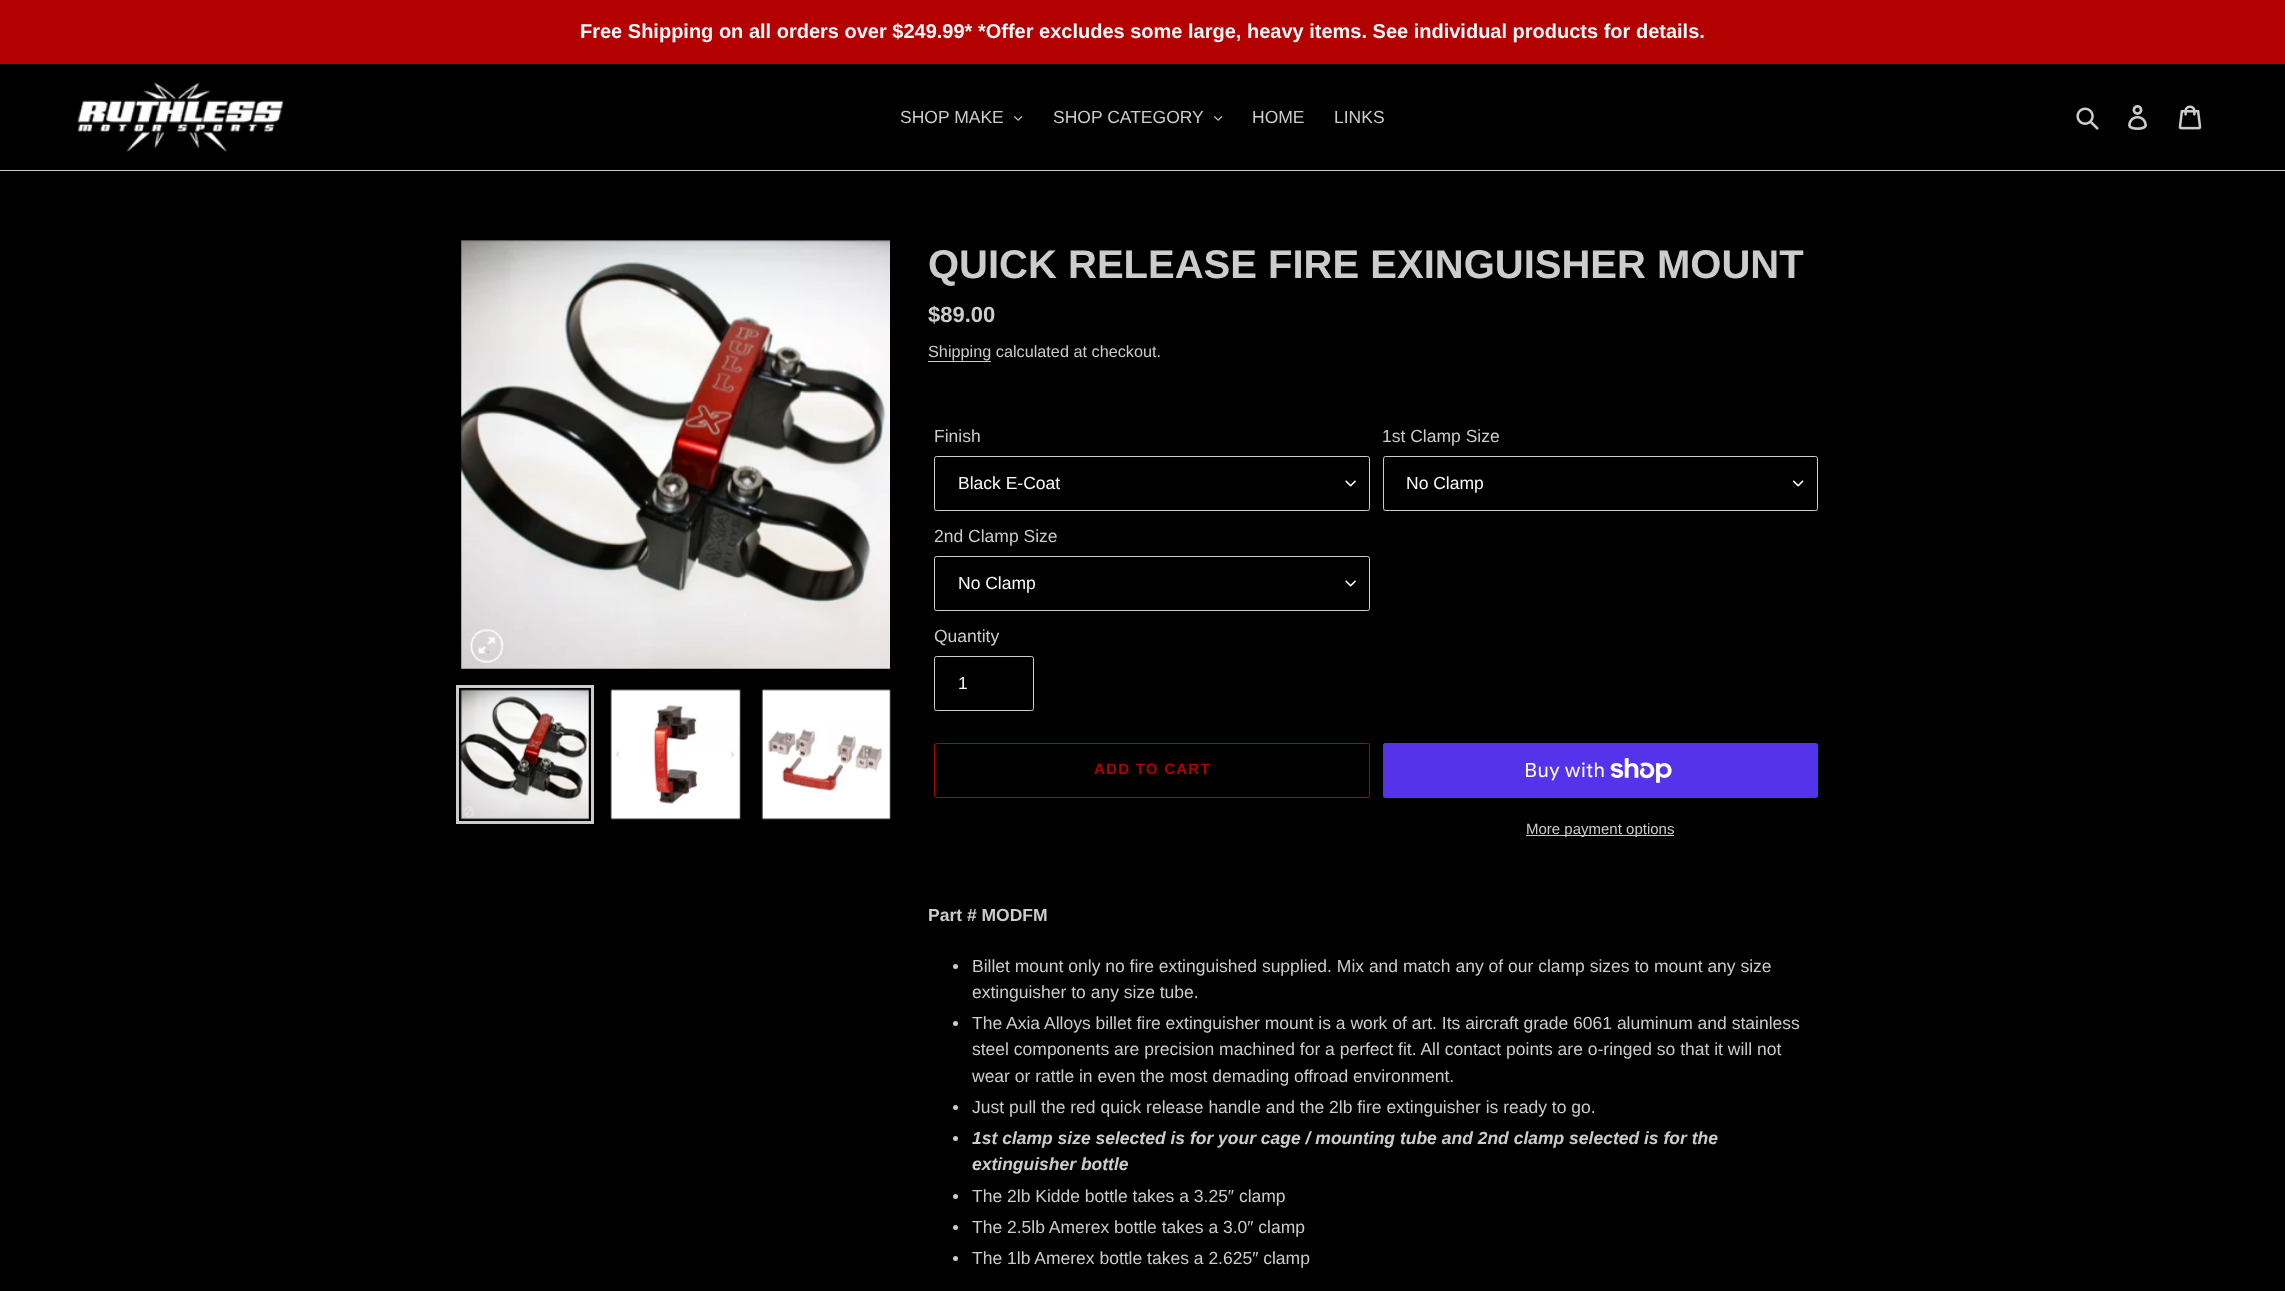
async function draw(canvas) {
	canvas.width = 2285;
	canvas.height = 1291;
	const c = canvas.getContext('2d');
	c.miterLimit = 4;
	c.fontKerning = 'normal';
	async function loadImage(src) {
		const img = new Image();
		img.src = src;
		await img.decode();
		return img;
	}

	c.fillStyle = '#000';
	c.fillRect(0, 0, 2285, 1291);
	c.fillStyle = '#b30000';
	c.fillRect(0, 0, 2285, 64);
	c.font = 'bold 20px Liberation Sans';
	c.fillStyle = '#fafafa';
	c.fillText('Free Shipping on all orders over $249.99* *Offer excludes some large, heavy items. See individual products for details.', 580, 38);
	c.fillStyle = '#ccc';
	c.fillRect(0, 170, 2285, 1);
	c.drawImage(await loadImage('img1.png'), 77, 82, 207, 70);
	c.font = '17.5px Liberation Sans';
	c.fillText('SHOP MAKE', 900, 123);
	c.drawImage(await loadImage('img2.png'), 1014, 116, 9, 5);
	c.fillText('SHOP CATEGORY', 1053, 123);
	c.drawImage(await loadImage('img2.png'), 1214, 116, 9, 5);
	c.fillText('HOME', 1252, 123);
	c.fillText('LINKS', 1334, 123);
	c.drawImage(await loadImage('img3.png'), 2076, 107, 23, 23);
	c.drawImage(await loadImage('img4.png'), 2128, 105, 19, 25);
	c.drawImage(await loadImage('img5.png'), 2178, 105, 24, 25);
	c.drawImage(await loadImage('img6.png'), 461, 240, 429, 429);
	c.strokeStyle = '#ccc';
	c.lineWidth = 3;
	c.strokeRect(457.5, 686.5, 135, 136);
	c.drawImage(await loadImage('img7.png'), 460, 689, 129, 131);
	c.drawImage(await loadImage('img8.png'), 610, 689, 131, 131);
	c.drawImage(await loadImage('img9.png'), 761, 689, 130, 131);
	c.font = 'bold 40px Liberation Sans';
	c.fillText('QUICK RELEASE FIRE EXINGUISHER MOUNT', 928, 278);
	c.font = 'bold 22px Liberation Sans';
	c.fillText('$89.00', 928, 322);
	c.font = '16.25px Liberation Sans';
	c.fillText('Shipping calculated at checkout.', 928, 357);
	c.fillRect(928, 361, 63, 1);
	c.font = '17.5px Liberation Sans';
	c.fillText('Finish', 934, 442);
	c.drawImage(await loadImage('img10.png'), 1345, 480, 11, 7);
	c.beginPath();
	c.roundRect(934.5, 456.5, 435, 54, 2);
	c.lineWidth = 1;
	c.stroke();
	c.fillStyle = '#fafafa';
	c.fillText('Black E-Coat', 958, 489);
	c.fillStyle = '#ccc';
	c.fillText('1st Clamp Size', 1382, 442);
	c.drawImage(await loadImage('img11.png'), 1793, 480, 11, 7);
	c.beginPath();
	c.roundRect(1383.5, 456.5, 434, 54, 2);
	c.stroke();
	c.fillStyle = '#fafafa';
	c.fillText('No Clamp', 1406, 489);
	c.fillStyle = '#ccc';
	c.fillText('2nd Clamp Size', 934, 542);
	c.drawImage(await loadImage('img10.png'), 1345, 580, 11, 7);
	c.beginPath();
	c.roundRect(934.5, 556.5, 435, 54, 2);
	c.stroke();
	c.fillStyle = '#fafafa';
	c.fillText('No Clamp', 958, 589);
	c.fillStyle = '#ccc';
	c.fillText('Quantity', 934, 642);
	c.beginPath();
	c.roundRect(934.5, 656.5, 99, 54, 2);
	c.stroke();
	c.fillStyle = '#fafafa';
	c.fillText('1', 958, 689);
	c.beginPath();
	c.roundRect(934.5, 743.5, 435, 54, 2);
	c.strokeStyle = '#b30000';
	c.stroke();
	c.letterSpacing = '1.25px';
	c.font = 'bold 15px Liberation Sans';
	c.fillStyle = '#b30000';
	c.fillText('ADD TO CART', 1094, 774);
	c.fillStyle = '#5433eb';
	c.beginPath();
	c.roundRect(1383, 743, 435, 55, 2.5);
	c.fill();
	c.letterSpacing = '0px';
	c.font = '20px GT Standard';
	c.fillStyle = '#fafafa';
	c.fillText('Buy with', 1524, 777);
	c.drawImage(await loadImage('img12.png'), 1610, 758, 62, 25);
	c.fillStyle = '#ccc';
	c.fillRect(1526, 835, 148, 1);
	c.font = '15px Liberation Sans';
	c.fillText('More payment options', 1526, 834);
	c.font = 'bold 17.5px Liberation Sans';
	c.fillText('Part # MODFM', 928, 921);
	c.beginPath();
	c.arc(955.5, 966.5, 2.5, 0, 2 * Math.PI);
	c.fill();
	c.font = '17.5px Liberation Sans';
	c.fillText('Billet mount only no fire extinguished supplied. Mix and match any of our clamp sizes to mount any size', 972, 972);
	c.fillText('extinguisher to any size tube.', 972, 998);
	c.beginPath();
	c.arc(955.5, 1023.5, 2.5, 0, 2 * Math.PI);
	c.fill();
	for (const [text, x, y] of [
		['The Axia Alloys billet fire extinguisher mount is a work of art. Its aircraft grade 6061 aluminum and stainless', 972, 1029],
		['steel components are precision machined for a perfect fit. All contact points are o-ringed so that it will not', 972, 1055],
		['wear or rattle in even the most demading offroad environment.', 972, 1082],
	]) {
		c.fillText(text, x, y);
	}
	c.beginPath();
	c.arc(955.5, 1107.5, 2.5, 0, 2 * Math.PI);
	c.fill();
	c.fillText('Just pull the red quick release handle and the 2lb fire extinguisher is ready to go.', 972, 1113);
	c.beginPath();
	c.arc(955.5, 1138.5, 2.5, 0, 2 * Math.PI);
	c.fill();
	c.font = 'italic bold 17.5px Liberation Sans';
	c.fillText('1st clamp size selected is for your cage / mounting tube and 2nd clamp selected is for the', 972, 1144);
	c.fillText('extinguisher bottle', 972, 1170);
	c.beginPath();
	c.arc(955.5, 1196.5, 2.5, 0, 2 * Math.PI);
	c.fill();
	c.font = '17.5px Liberation Sans';
	c.fillText('The 2lb Kidde bottle takes a 3.25″ clamp', 972, 1202);
	c.beginPath();
	c.arc(955.5, 1227.5, 2.5, 0, 2 * Math.PI);
	c.fill();
	c.fillText('The 2.5lb Amerex bottle takes a 3.0″ clamp', 972, 1233);
	c.beginPath();
	c.arc(955.5, 1258.5, 2.5, 0, 2 * Math.PI);
	c.fill();
	c.fillText('The 1lb Amerex bottle takes a 2.625″ clamp', 972, 1264);
}

draw(document.querySelector('canvas'));
